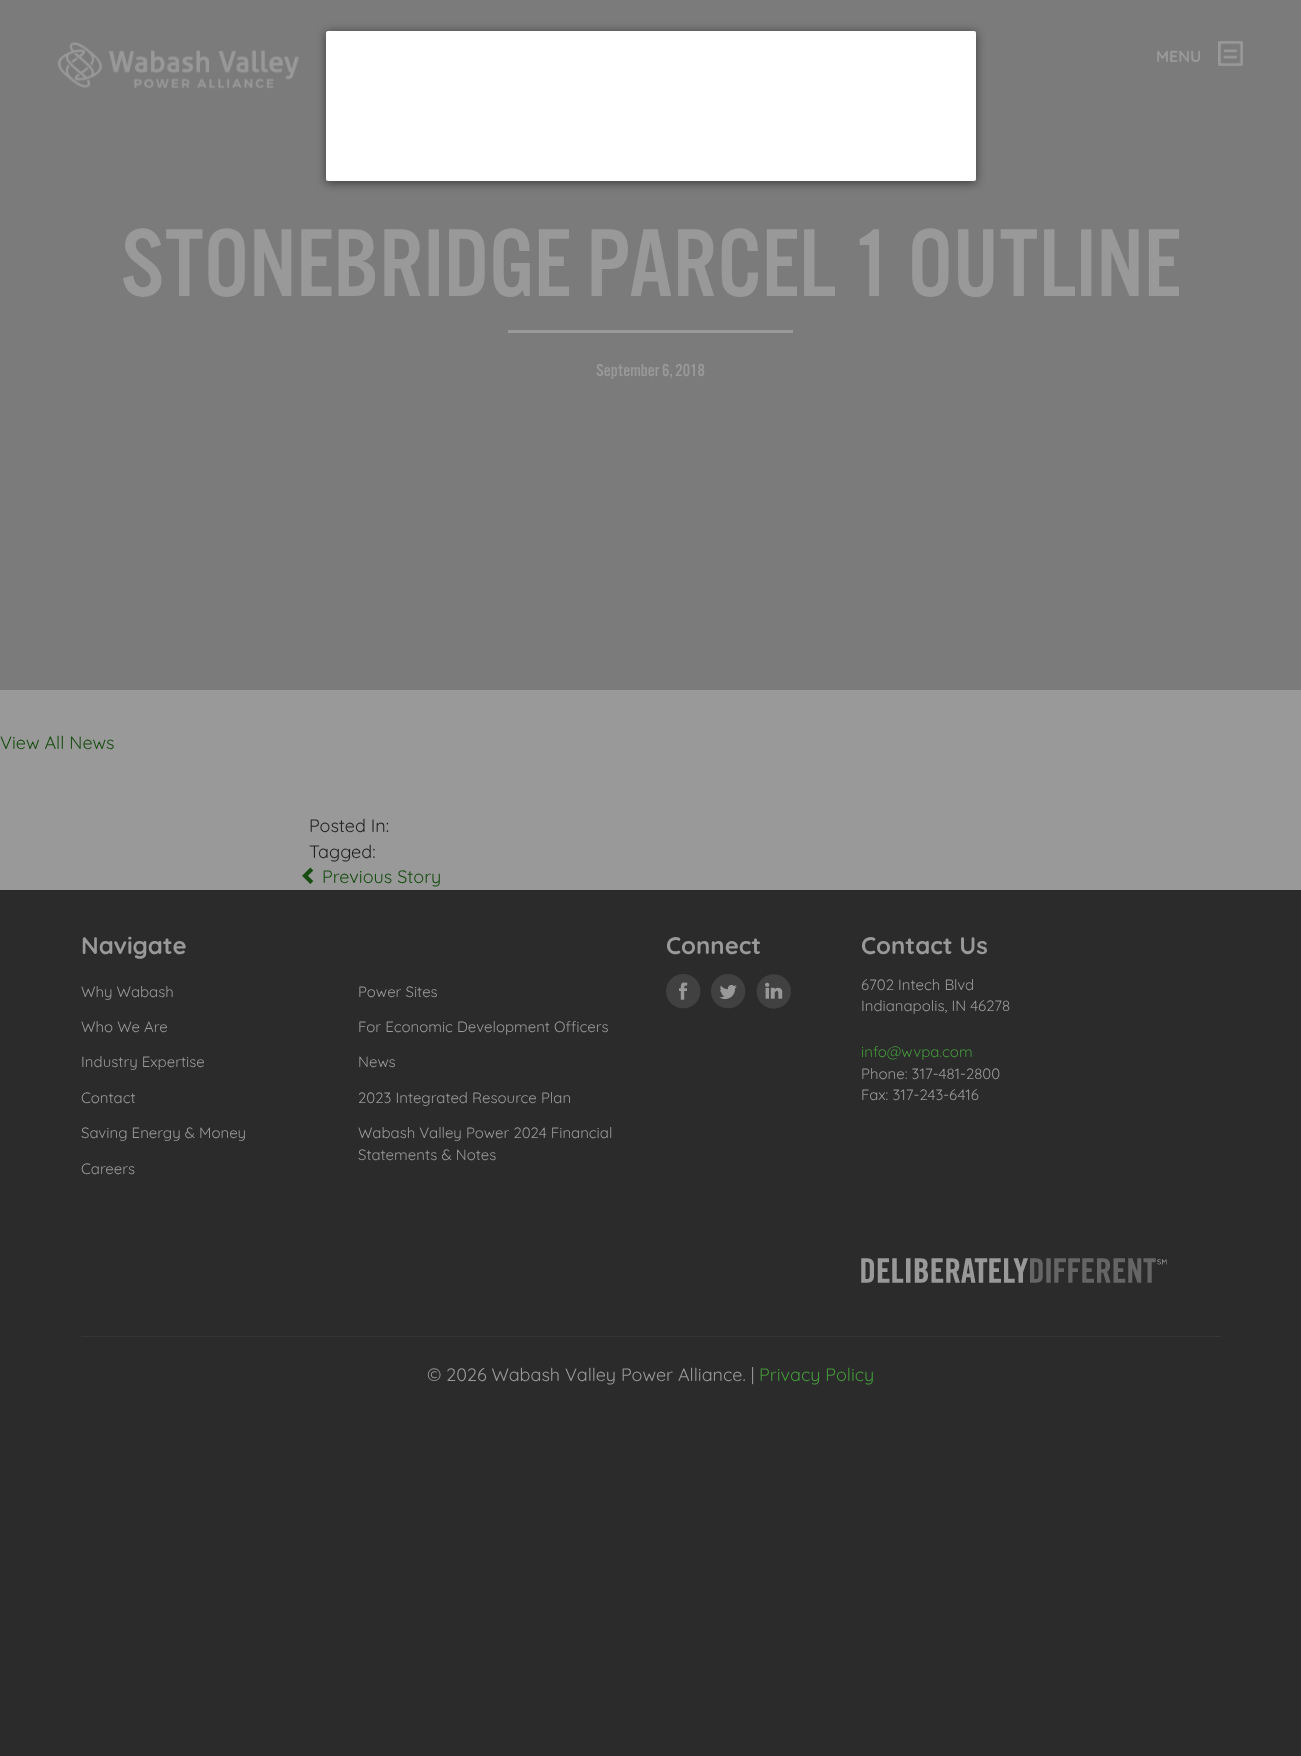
async function draw(canvas) {
	canvas.width = 1301;
	canvas.height = 1756;
	const c = canvas.getContext('2d');
	c.miterLimit = 4;
	c.fontKerning = 'normal';
	async function loadImage(src) {
		const img = new Image();
		img.src = src;
		await img.decode();
		return img;
	}

	c.fillStyle = '#2b2b2b';
	c.fillRect(0, 0, 1301, 1756);
	c.fillStyle = '#999';
	c.fillRect(0, 690, 1301, 200);
	c.fillStyle = '#7b7b7b';
	c.fillRect(0, 0, 1301, 690);
	c.fillStyle = '#00000080';
	c.filter = 'blur(5px)';
	c.beginPath();
	c.rect(326, 32, 650, 151);
	c.fill();
	c.filter = 'none';
	c.fillStyle = '#fff';
	c.beginPath();
	c.roundRect(326, 31, 650, 150, 2);
	c.fill();
	c.drawImage(await loadImage('img1.png'), 57, 42, 242, 47);
	c.font = 'bold 16px Quicksand';
	c.fillStyle = '#999';
	c.fillText('MENU', 1156, 62);
	c.drawImage(await loadImage('img2.png'), 1218, 41, 25, 25);
	c.font = '100px "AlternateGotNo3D"';
	c.fillText('STONEBRIDGE PARCEL 1 OUTLINE', 121, 296);
	c.fillRect(508, 330, 285, 3);
	c.font = '18px "AlternateGotNo3D"';
	c.fillText('September 6, 2018', 596, 376);
	c.font = '18px Quicksand';
	c.fillStyle = '#174d11';
	c.fillText('View All News', 0, 749);
	c.fillStyle = '#1f1f1f';
	c.fillText('Posted In:', 309, 832);
	c.fillText('Tagged:', 309, 858);
	c.drawImage(await loadImage('img3.png'), 302, 867, 12, 17);
	c.fillStyle = '#174d11';
	c.fillText('Previous Story', 322, 883);
	c.font = 'bold 24px Quicksand';
	c.fillStyle = '#999';
	c.fillText('Navigate', 81, 954);
	c.font = '15px Quicksand';
	for (const [text, x, y] of [
		['Why Wabash', 81, 997],
		['Who We Are', 81, 1032],
		['Industry Expertise', 81, 1067],
		['Contact', 81, 1103],
		['Saving Energy & Money', 81, 1138],
		['Careers', 81, 1174],
		['Power Sites', 358, 997],
		['For Economic Development Officers', 358, 1032],
		['News', 358, 1067],
		['2023 Integrated Resource Plan', 358, 1103],
		['Wabash Valley Power 2024 Financial', 358, 1138],
		['Statements & Notes', 358, 1160],
	]) {
		c.fillText(text, x, y);
	}
	c.font = 'bold 24px Quicksand';
	c.fillText('Connect', 666, 954);
	c.drawImage(await loadImage('img4.png'), 666, 974, 35, 35);
	c.drawImage(await loadImage('img5.png'), 711, 974, 35, 35);
	c.drawImage(await loadImage('img6.png'), 756, 974, 35, 35);
	c.fillText('Contact Us', 861, 954);
	c.font = '15px Quicksand';
	c.fillText('6702 Intech Blvd', 861, 990);
	c.fillText('Indianapolis, IN 46278', 861, 1011);
	c.fillStyle = '#43973a';
	c.fillText('info@wvpa.com', 861, 1057);
	c.fillStyle = '#999';
	c.fillText('Phone: 317-481-2800', 861, 1079);
	c.fillText('Fax: 317-243-6416', 861, 1100);
	c.drawImage(await loadImage('img7.png'), 861, 1258, 306, 25);
	c.fillStyle = '#363636';
	c.fillRect(81, 1336, 1140, 1);
	c.font = '18px Quicksand';
	c.fillStyle = '#999';
	c.fillText('© 2026 Wabash Valley Power Alliance. |', 427, 1381);
	c.fillStyle = '#43973a';
	c.fillText('Privacy Policy', 759, 1381);
}

draw(document.querySelector('canvas'));
